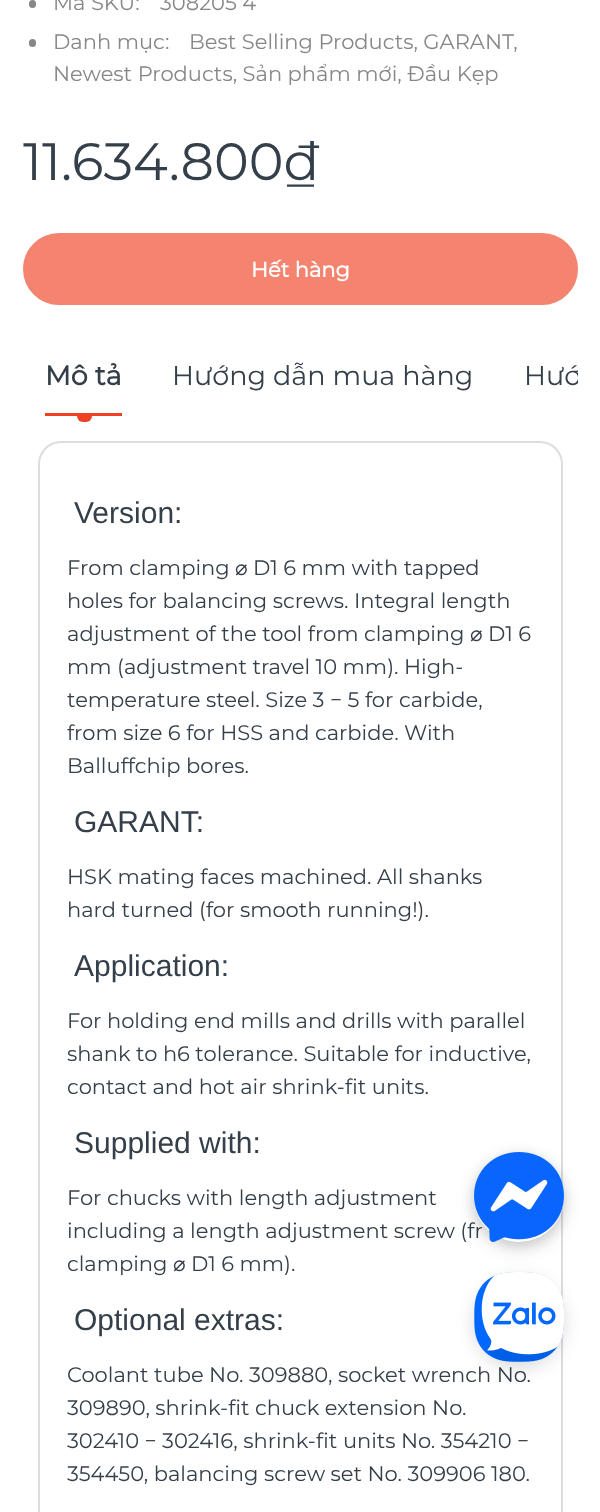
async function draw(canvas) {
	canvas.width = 600;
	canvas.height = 1512;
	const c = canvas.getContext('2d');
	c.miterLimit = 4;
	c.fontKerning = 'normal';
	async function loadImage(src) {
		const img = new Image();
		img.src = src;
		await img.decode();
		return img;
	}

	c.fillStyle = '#fff';
	c.fillRect(0, 0, 600, 1512);
	c.fillStyle = '#878787';
	c.beginPath();
	c.roundRect(29, 0, 7, 8, 3.5);
	c.fill();
	c.font = '100 21px Montserrat';
	c.fillText('Mã SKU:', 53, 10);
	c.fillText('308205 4', 160, 10);
	c.beginPath();
	c.roundRect(29, 39, 7, 8, 3.5);
	c.fill();
	for (const [text, x, y] of [
		['Danh mục:', 53, 49],
		['Best Selling Products, GARANT,', 189, 49],
		['Newest Products, Sản phẩm mới, Đầu Kẹp', 53, 81],
	]) {
		c.fillText(text, x, y);
	}
	c.font = '100 52.5px Montserrat';
	c.fillStyle = '#343f49';
	c.fillText('11.634.800₫', 23, 180);
	c.fillStyle = '#f48470';
	c.beginPath();
	c.roundRect(24, 234, 553, 70, 35);
	c.fill();
	c.strokeStyle = '#f48470';
	c.lineWidth = 2;
	c.stroke();
	c.font = 'bold 21px Montserrat';
	c.fillStyle = '#fff';
	c.fillText('Hết hàng', 251, 277);
	c.font = 'bold 27px Montserrat';
	c.fillStyle = '#343f49';
	c.fillText('Mô tả', 45, 385);
	c.fillStyle = '#ee4123';
	c.fillRect(45, 413, 77, 3);
	c.beginPath();
	c.roundRect(77, 416, 15, 6, [0, 0, 6, 6]);
	c.fill();
	c.font = '100 27px Montserrat';
	c.fillStyle = '#343f49';
	c.fillText('Hướng dẫn mua hàng', 172, 385);
	c.save();
	c.beginPath();
	c.rect(23, 357, 555, 69);
	c.clip();
	c.fillText('Hướ', 524, 385);
	c.restore();
	c.beginPath();
	c.roundRect(39, 442, 523, 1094, 22);
	c.strokeStyle = '#ddd';
	c.stroke();
	c.font = '30px Liberation Sans';
	c.fillText('Version:', 74, 523);
	c.font = '100 21px Montserrat';
	c.fillText('From clamping', 67, 575);
	c.font = '21px DejaVu Sans';
	c.fillText('⌀', 235, 575);
	c.font = '100 21px Montserrat';
	for (const [text, x, y] of [
		['D1 6 mm with tapped', 253, 575],
		['holes for balancing screws. Integral length', 67, 608],
		['adjustment of the tool from clamping', 67, 641],
	]) {
		c.fillText(text, x, y);
	}
	c.font = '21px DejaVu Sans';
	c.fillText('⌀', 470, 641);
	c.font = '100 21px Montserrat';
	for (const [text, x, y] of [
		['D1 6', 488, 641],
		['mm (adjustment travel 10 mm). High-', 67, 674],
		['temperature steel. Size 3 − 5 for carbide,', 67, 707],
		['from size 6 for HSS and carbide. With', 67, 740],
		['Balluffchip bores.', 67, 773],
	]) {
		c.fillText(text, x, y);
	}
	c.font = '30px Liberation Sans';
	c.fillText('GARANT:', 74, 832);
	c.font = '100 21px Montserrat';
	c.fillText('HSK mating faces machined. All shanks', 67, 884);
	c.fillText('hard turned (for smooth running!).', 67, 917);
	c.font = '30px Liberation Sans';
	c.fillText('Application:', 74, 976);
	c.font = '100 21px Montserrat';
	for (const [text, x, y] of [
		['For holding end mills and drills with parallel', 67, 1028],
		['shank to h6 tolerance. Suitable for inductive,', 67, 1061],
		['contact and hot air shrink-fit units.', 67, 1094],
	]) {
		c.fillText(text, x, y);
	}
	c.font = '30px Liberation Sans';
	c.fillText('Supplied with:', 74, 1153);
	c.font = '100 21px Montserrat';
	for (const [text, x, y] of [
		['For chucks with length adjustment', 67, 1205],
		['including a length adjustment screw (fr', 67, 1238],
		['clamping', 67, 1271],
	]) {
		c.fillText(text, x, y);
	}
	c.font = '21px DejaVu Sans';
	c.fillText('⌀', 173, 1271);
	c.font = '100 21px Montserrat';
	c.fillText('D1 6 mm).', 191, 1271);
	c.font = '30px Liberation Sans';
	c.fillText('Optional extras:', 74, 1330);
	c.font = '100 21px Montserrat';
	for (const [text, x, y] of [
		['Coolant tube No. 309880, socket wrench No.', 67, 1382],
		['309890, shrink-fit chuck extension No.', 67, 1415],
		['302410 − 302416, shrink-fit units No. 354210 −', 67, 1448],
		['354450, balancing screw set No. 309906 180.', 67, 1481],
	]) {
		c.fillText(text, x, y);
	}
	c.fillStyle = '#00000026';
	c.filter = 'blur(9px)';
	c.beginPath();
	c.roundRect(474, 1278, 90, 90, 45);
	c.fill();
	c.filter = 'none';
	c.drawImage(await loadImage('img2.png'), 474, 1272, 90, 90);
	c.filter = 'blur(9px)';
	c.beginPath();
	c.roundRect(474, 1158, 90, 90, 45);
	c.fill();
	c.filter = 'none';
	c.fillStyle = '#0000001a';
	c.filter = 'blur(6px)';
	c.beginPath();
	c.roundRect(474, 1155, 90, 90, 45);
	c.fill();
	c.filter = 'none';
	c.fillStyle = '#fff';
	c.beginPath();
	c.arc(519, 1197, 45, 0, 2 * Math.PI);
	c.fill();
	c.drawImage(await loadImage('img1.png'), 474, 1152, 90, 90);
}

draw(document.querySelector('canvas'));
